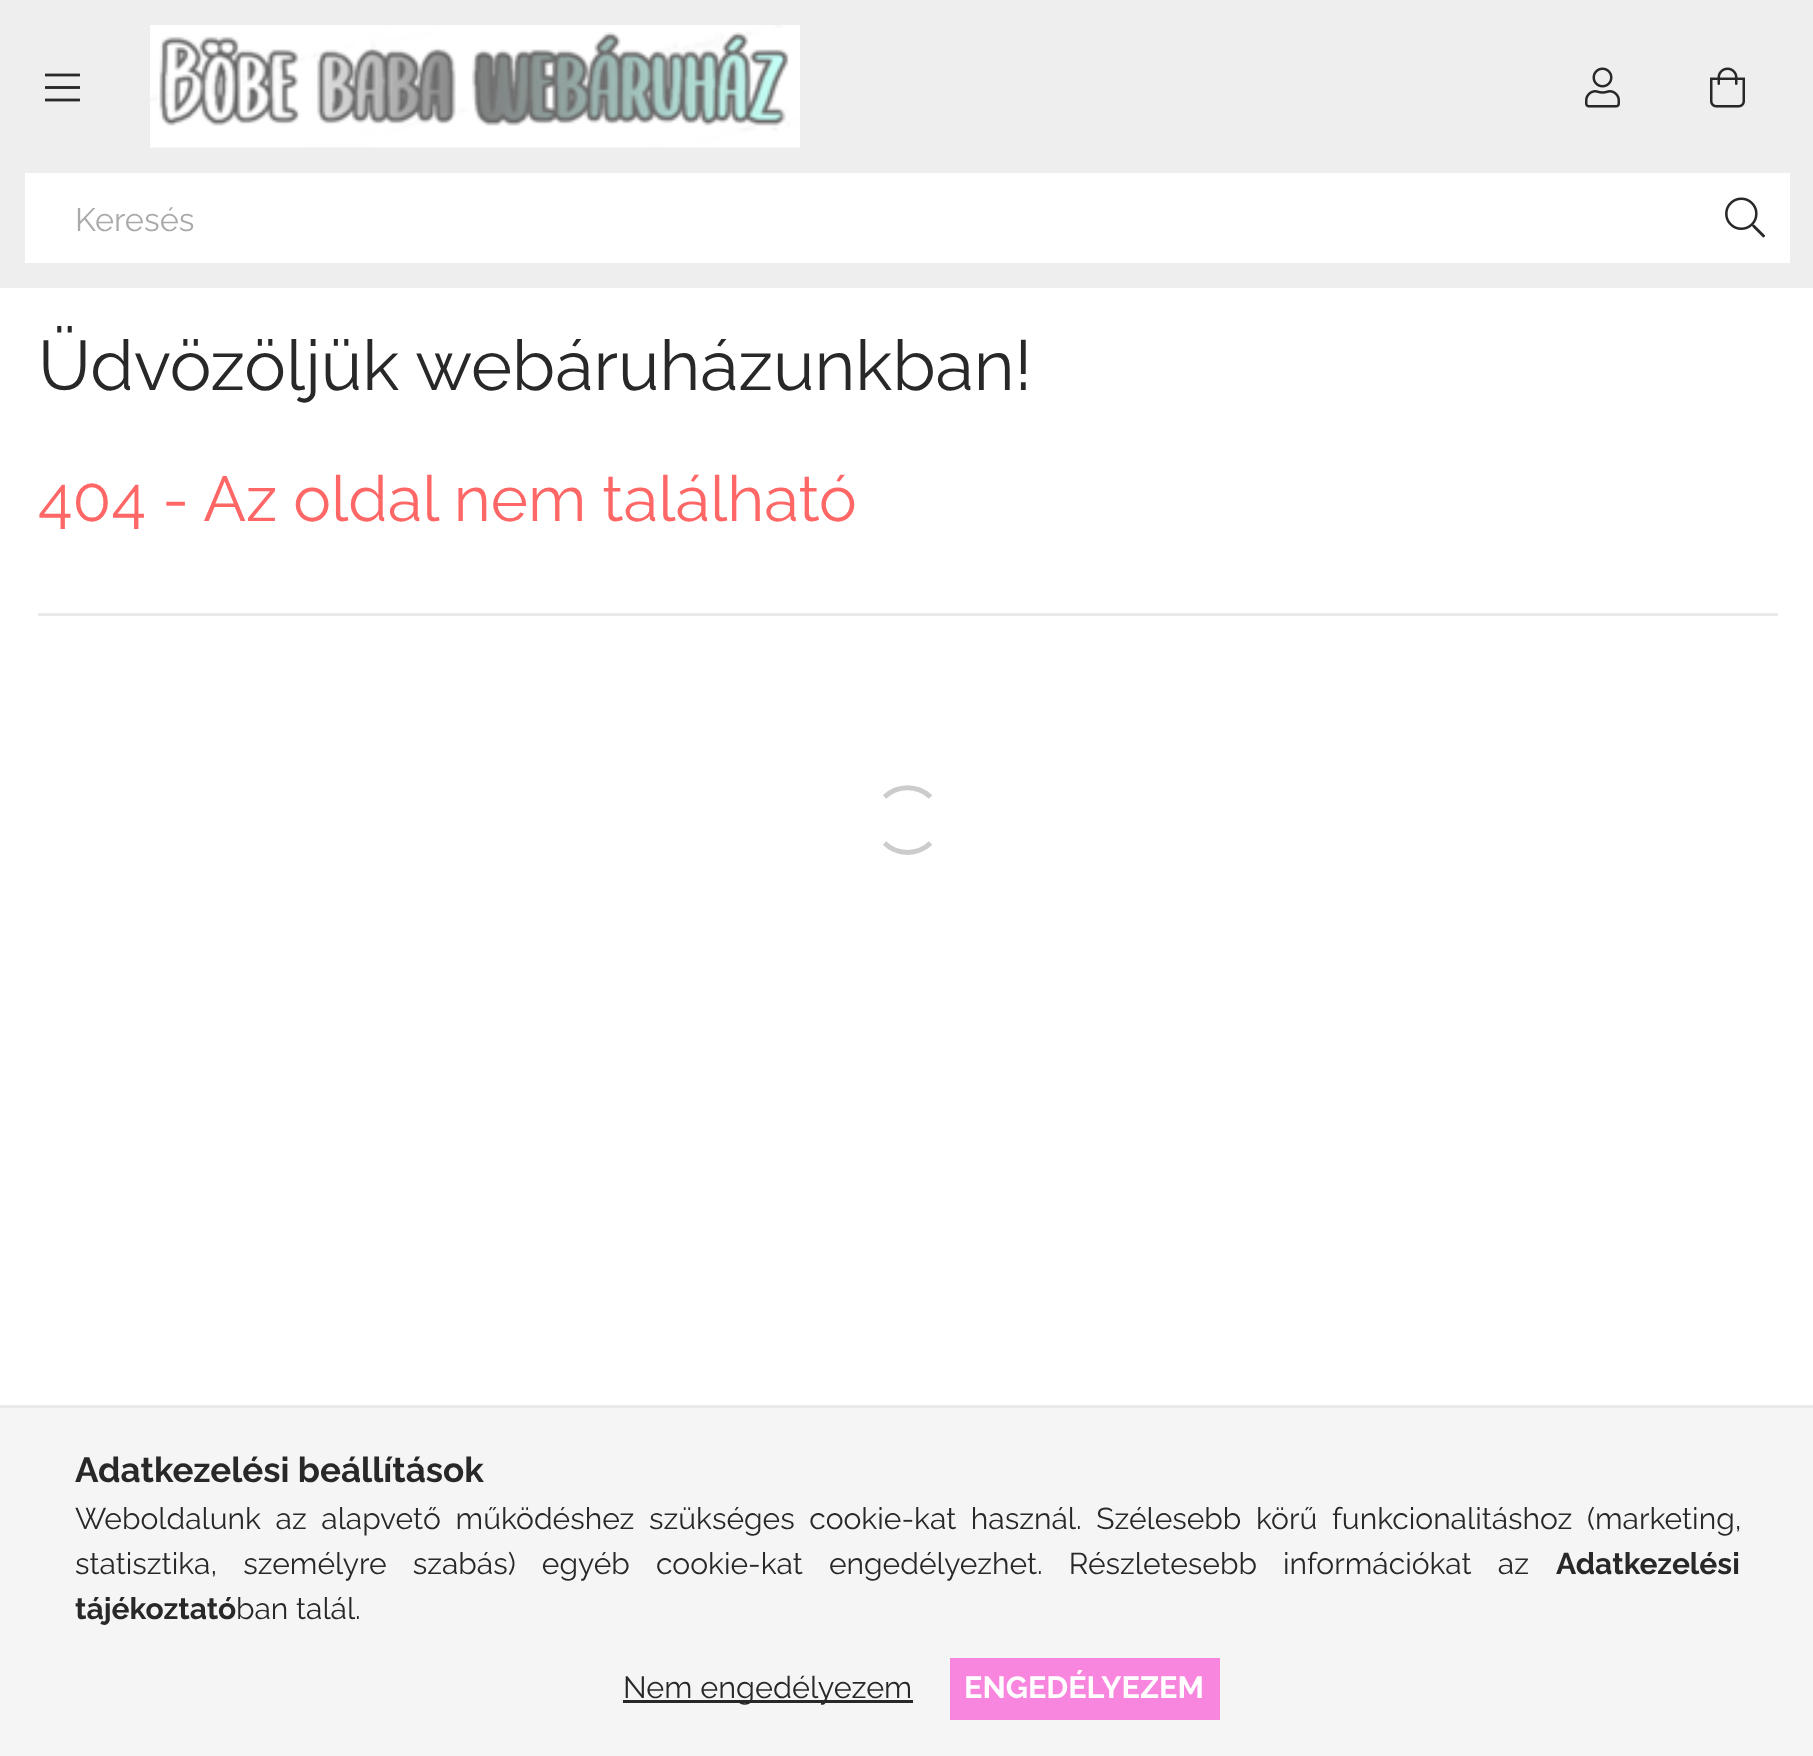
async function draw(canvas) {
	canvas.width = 1813;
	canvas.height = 1756;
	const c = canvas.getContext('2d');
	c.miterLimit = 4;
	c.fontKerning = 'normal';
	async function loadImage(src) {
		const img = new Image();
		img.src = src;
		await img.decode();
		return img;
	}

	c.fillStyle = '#fff';
	c.fillRect(0, 0, 1813, 1756);
	c.fillStyle = '#eee';
	c.fillRect(0, 0, 1813, 288);
	c.drawImage(await loadImage('img1.png'), 45, 73, 35, 29);
	c.drawImage(await loadImage('img2.png'), 150, 25, 650, 123);
	c.drawImage(await loadImage('img3.png'), 1585, 67, 35, 41);
	c.drawImage(await loadImage('img4.png'), 1710, 67, 35, 41);
	c.fillStyle = '#fff';
	c.fillRect(25, 173, 1765, 90);
	c.font = '32.5px Raleway';
	c.fillStyle = '#aaa';
	c.fillText('Keresés', 75, 231);
	c.drawImage(await loadImage('img5.png'), 1725, 197, 41, 41);
	c.font = '70px Raleway';
	c.fillStyle = '#282828';
	c.fillText('Üdvözöljük webáruházunkban!', 38, 390);
	c.fillStyle = '#eaeaea';
	c.fillRect(38, 613, 1740, 3);
	c.font = '63.4px Raleway';
	c.fillStyle = '#f66';
	c.fillText('404 - Az oldal nem található', 38, 521);
	c.beginPath();
	c.moveTo(884.5, 797);
	c.bezierCurveTo(897, 784.5, 918, 784.5, 930.5, 797);
	c.strokeStyle = '#ccc';
	c.lineWidth = 5;
	c.stroke();
	c.beginPath();
	c.moveTo(930.5, 843);
	c.bezierCurveTo(918, 855.5, 897, 855.5, 884.5, 843);
	c.stroke();
	c.fillStyle = '#f5f5f5';
	c.fillRect(0, 1408, 1813, 348);
	c.fillStyle = '#eaeaea';
	c.fillRect(0, 1405, 1813, 3);
	c.font = 'bold 35px Raleway';
	c.fillStyle = '#282828';
	c.fillText('Adatkezelési beállítások', 75, 1482);
	c.wordSpacing = '7px';
	c.font = '30px Raleway';
	c.fillText('Weboldalunk az alapvető működéshez szükséges cookie-kat használ. Szélesebb körű funkcionalitáshoz (marketing,', 75, 1529);
	c.wordSpacing = '18.5px';
	c.fillText('statisztika, személyre szabás) egyéb cookie-kat engedélyezhet. Részletesebb információkat az', 75, 1574);
	c.wordSpacing = '0px';
	c.font = 'bold 30px Raleway';
	c.fillText('Adatkezelési', 1556, 1574);
	c.fillText('tájékoztató', 75, 1619);
	c.font = '30px Raleway';
	c.fillText('ban talál.', 236, 1619);
	c.fillRect(623, 1700, 290, 3);
	c.font = '30.6px Raleway';
	c.fillText('Nem engedélyezem', 623, 1698);
	c.fillStyle = '#f986de';
	c.fillRect(950, 1658, 270, 62);
	c.font = 'bold 30.6px Raleway';
	c.fillStyle = '#fff';
	c.fillText('ENGEDÉLYEZEM', 964, 1698);
}

draw(document.querySelector('canvas'));
